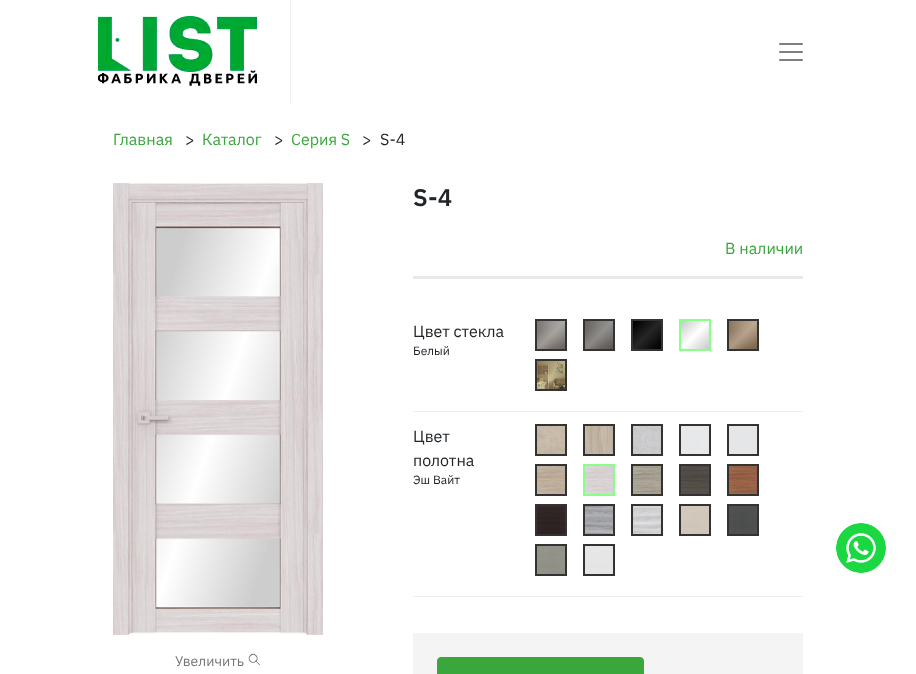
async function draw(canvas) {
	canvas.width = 916;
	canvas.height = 674;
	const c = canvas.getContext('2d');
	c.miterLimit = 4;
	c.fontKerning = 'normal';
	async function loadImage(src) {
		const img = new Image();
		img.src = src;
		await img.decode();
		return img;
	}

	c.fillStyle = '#fff';
	c.fillRect(0, 0, 916, 674);
	c.fillStyle = '#efefef';
	c.fillRect(290, 0, 1, 103);
	c.drawImage(await loadImage('img1.png'), 98, 16, 159, 70);
	c.drawImage(await loadImage('img2.png'), 779, 43, 24, 18);
	c.font = '16px IBM Plex Sans';
	c.fillStyle = '#39a73c';
	c.fillText('Главная', 113, 145);
	c.fillStyle = '#212529';
	c.fillText('>', 185, 145);
	c.fillStyle = '#39a73c';
	c.fillText('Каталог', 202, 145);
	c.fillStyle = '#212529';
	c.fillText('>', 274, 145);
	c.fillStyle = '#39a73c';
	c.fillText('Серия S', 291, 145);
	c.fillStyle = '#212529';
	c.fillText('>', 362, 145);
	c.fillText('S-4', 380, 145);
	c.font = '600 24px IBM Plex Sans';
	c.fillText('S-4', 413, 206);
	c.font = '16px IBM Plex Sans';
	c.fillStyle = '#39a73c';
	c.fillText('В наличии', 725, 254);
	for (const [x, y, w, h, color] of [
		[413, 276, 390, 3, '#e9e9e9'],
		[413, 596, 390, 1, '#efefef'],
		[413, 411, 390, 1, '#efefef'],
	]) {
		c.fillStyle = color;
		c.fillRect(x, y, w, h);
	}
	c.fillStyle = '#212529';
	c.fillText('Цвет стекла', 413, 337);
	c.font = '12px IBM Plex Sans';
	c.fillText('Белый', 413, 355);
	c.drawImage(await loadImage('img3.png'), 537, 321, 28, 28);
	c.strokeStyle = '#333';
	c.lineWidth = 2;
	c.strokeRect(536, 320, 30, 30);
	c.drawImage(await loadImage('img4.png'), 585, 321, 28, 28);
	c.strokeRect(584, 320, 30, 30);
	c.drawImage(await loadImage('img5.png'), 633, 321, 28, 28);
	c.strokeRect(632, 320, 30, 30);
	c.drawImage(await loadImage('img6.png'), 681, 321, 28, 28);
	c.strokeStyle = '#8f8';
	c.strokeRect(680, 320, 30, 30);
	c.drawImage(await loadImage('img7.png'), 729, 321, 28, 28);
	c.strokeStyle = '#333';
	c.strokeRect(728, 320, 30, 30);
	c.drawImage(await loadImage('img8.png'), 537, 361, 28, 28);
	c.strokeRect(536, 360, 30, 30);
	c.font = '16px IBM Plex Sans';
	c.fillText('Цвет', 413, 442);
	c.fillText('полотна', 413, 466);
	c.font = '12px IBM Plex Sans';
	c.fillText('Эш Вайт', 413, 484);
	c.drawImage(await loadImage('img9.png'), 537, 426, 28, 28);
	c.strokeRect(536, 425, 30, 30);
	c.drawImage(await loadImage('img10.png'), 585, 426, 28, 28);
	c.strokeRect(584, 425, 30, 30);
	c.drawImage(await loadImage('img11.png'), 633, 426, 28, 28);
	c.strokeRect(632, 425, 30, 30);
	c.drawImage(await loadImage('img12.png'), 681, 426, 28, 28);
	c.strokeRect(680, 425, 30, 30);
	c.fillStyle = '#e5e6e7';
	c.beginPath();
	c.rect(728, 425, 30, 30);
	c.fill();
	c.stroke();
	c.drawImage(await loadImage('img13.png'), 537, 466, 28, 28);
	c.strokeRect(536, 465, 30, 30);
	c.drawImage(await loadImage('img14.png'), 585, 466, 28, 28);
	c.strokeStyle = '#8f8';
	c.strokeRect(584, 465, 30, 30);
	c.drawImage(await loadImage('img15.png'), 633, 466, 28, 28);
	c.strokeStyle = '#333';
	c.strokeRect(632, 465, 30, 30);
	c.drawImage(await loadImage('img16.png'), 681, 466, 28, 28);
	c.strokeRect(680, 465, 30, 30);
	c.drawImage(await loadImage('img17.png'), 729, 466, 28, 28);
	c.strokeRect(728, 465, 30, 30);
	c.drawImage(await loadImage('img18.png'), 537, 506, 28, 28);
	c.strokeRect(536, 505, 30, 30);
	c.drawImage(await loadImage('img19.png'), 585, 506, 28, 28);
	c.strokeRect(584, 505, 30, 30);
	c.drawImage(await loadImage('img20.png'), 633, 506, 28, 28);
	c.strokeRect(632, 505, 30, 30);
	c.drawImage(await loadImage('img21.png'), 681, 506, 28, 28);
	c.strokeRect(680, 505, 30, 30);
	c.drawImage(await loadImage('img22.png'), 729, 506, 28, 28);
	c.strokeRect(728, 505, 30, 30);
	c.drawImage(await loadImage('img23.png'), 537, 546, 28, 28);
	c.strokeRect(536, 545, 30, 30);
	c.drawImage(await loadImage('img24.png'), 585, 546, 28, 28);
	c.strokeRect(584, 545, 30, 30);
	c.fillStyle = '#f4f4f4';
	c.fillRect(413, 633, 390, 41);
	c.fillStyle = '#39a73c';
	c.beginPath();
	c.roundRect(437.5, 657.5, 206, 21, 3.5);
	c.fill();
	c.strokeStyle = '#39a73c';
	c.lineWidth = 1;
	c.stroke();
	c.drawImage(await loadImage('img25.png'), 113, 183, 210, 452);
	c.drawImage(await loadImage('img26.png'), 248, 653, 13, 13);
	c.font = '14px IBM Plex Sans';
	c.fillStyle = '#777';
	c.fillText('Увеличить', 175, 666);
	c.drawImage(await loadImage('img27.png'), 836, 523, 50, 50);
}

draw(document.querySelector('canvas'));
